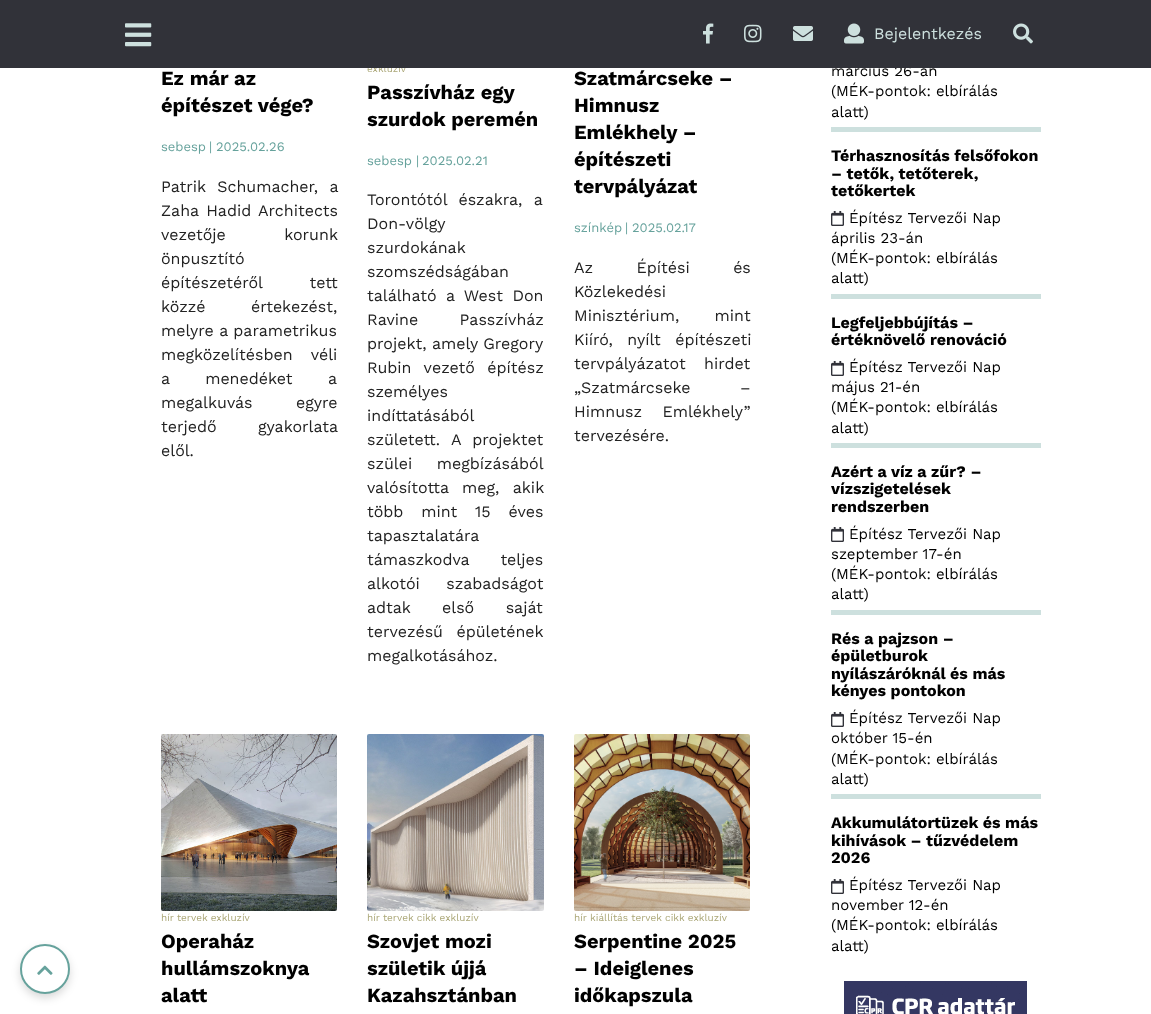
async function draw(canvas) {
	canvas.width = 1151;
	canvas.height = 1014;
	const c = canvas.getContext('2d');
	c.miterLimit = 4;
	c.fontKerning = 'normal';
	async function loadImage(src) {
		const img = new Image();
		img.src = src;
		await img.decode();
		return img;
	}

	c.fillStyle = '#fff';
	c.fillRect(0, 0, 1151, 1014);
	c.font = '10px Work Sans';
	c.fillStyle = '#aaa676';
	c.fillText('exkluzív', 367, 72);
	c.font = '15px Work Sans';
	c.fillStyle = '#000';
	c.fillText('március 26-án', 831, 76);
	c.fillStyle = '#313239';
	c.fillRect(0, 0, 1151, 68);
	c.drawImage(await loadImage('img1.png'), 125, 23, 27, 24);
	c.drawImage(await loadImage('img2.png'), 703, 23, 11, 21);
	c.drawImage(await loadImage('img3.png'), 744, 24, 18, 19);
	c.drawImage(await loadImage('img4.png'), 793, 26, 20, 15);
	c.drawImage(await loadImage('img5.png'), 844, 23, 20, 21);
	c.font = '16px Work Sans';
	c.fillStyle = '#cde0de';
	c.fillText('Bejelentkezés', 874, 39);
	c.drawImage(await loadImage('img6.png'), 1013, 23, 20, 21);
	c.fillStyle = '#00000026';
	c.filter = 'blur(4px)';
	c.beginPath();
	c.roundRect(20, 948, 50, 50, 25);
	c.fill();
	c.filter = 'none';
	c.fillStyle = '#fff';
	c.beginPath();
	c.arc(45, 969, 24, 0, 2 * Math.PI);
	c.fill();
	c.strokeStyle = '#66a29c';
	c.lineWidth = 2;
	c.stroke();
	c.drawImage(await loadImage('img7.png'), 37, 965, 16, 10);
	c.font = 'bold 20px Work Sans';
	c.fillStyle = '#000';
	c.fillText('Ez már az', 161, 85);
	c.fillText('építészet vége?', 161, 112);
	c.font = '13px Work Sans';
	c.fillStyle = '#66a29c';
	for (const [text, x, y] of [
		['sebesp', 161, 151],
		['|', 209, 151],
		['2025.02.26', 216, 151],
	]) {
		c.fillText(text, x, y);
	}
	c.wordSpacing = '6px';
	c.font = '16px Work Sans';
	c.fillStyle = '#222';
	c.fillText('Patrik Schumacher, a', 161, 192);
	c.wordSpacing = '2px';
	c.fillText('Zaha Hadid Architects', 161, 216);
	c.wordSpacing = '53px';
	c.fillText('vezetője korunk', 161, 240);
	c.wordSpacing = '0px';
	c.fillText('önpusztító', 161, 264);
	c.wordSpacing = '42px';
	c.fillText('építészetéről tett', 161, 288);
	c.wordSpacing = '40px';
	c.fillText('közzé értekezést,', 161, 312);
	c.wordSpacing = '0px';
	c.fillText('melyre a parametrikus', 161, 336);
	c.wordSpacing = '13px';
	c.fillText('megközelítésben véli', 161, 360);
	c.wordSpacing = '30px';
	c.fillText('a menedéket a', 161, 384);
	c.wordSpacing = '38px';
	c.fillText('megalkuvás egyre', 161, 408);
	c.wordSpacing = '36px';
	c.fillText('terjedő gyakorlata', 161, 432);
	c.wordSpacing = '0px';
	c.fillText('elől.', 161, 456);
	c.font = 'bold 20px Work Sans';
	c.fillStyle = '#000';
	c.fillText('Passzívház egy', 367, 99);
	c.fillText('szurdok peremén', 367, 126);
	c.font = '13px Work Sans';
	c.fillStyle = '#66a29c';
	for (const [text, x, y] of [
		['sebesp', 367, 165],
		['|', 416, 165],
		['2025.02.21', 422, 165],
	]) {
		c.fillText(text, x, y);
	}
	c.wordSpacing = '6px';
	c.font = '16px Work Sans';
	c.fillStyle = '#222';
	c.fillText('Torontótól északra, a', 367, 205);
	c.wordSpacing = '0px';
	for (const [text, x, y] of [
		['Don-völgy', 367, 229],
		['szurdokának', 367, 253],
		['szomszédságában', 367, 277],
	]) {
		c.fillText(text, x, y);
	}
	c.wordSpacing = '4px';
	c.fillText('található a West Don', 367, 301);
	c.wordSpacing = '36px';
	c.fillText('Ravine Passzívház', 367, 325);
	c.wordSpacing = '0px';
	c.fillText('projekt, amely Gregory', 367, 349);
	c.wordSpacing = '7px';
	c.fillText('Rubin vezető építész', 367, 373);
	c.wordSpacing = '0px';
	c.fillText('személyes', 367, 397);
	c.fillText('indíttatásából', 367, 421);
	c.wordSpacing = '6px';
	c.fillText('született. A projektet', 367, 445);
	c.wordSpacing = '19px';
	c.fillText('szülei megbízásából', 367, 469);
	c.wordSpacing = '8px';
	c.fillText('valósította meg, akik', 367, 493);
	c.wordSpacing = '12.5px';
	c.fillText('több mint 15 éves', 367, 517);
	c.wordSpacing = '0px';
	c.fillText('tapasztalatára', 367, 541);
	c.wordSpacing = '26px';
	c.fillText('támaszkodva teljes', 367, 565);
	c.wordSpacing = '21px';
	c.fillText('alkotói szabadságot', 367, 589);
	c.wordSpacing = '26px';
	c.fillText('adtak első saját', 367, 613);
	c.wordSpacing = '8px';
	c.fillText('tervezésű épületének', 367, 637);
	c.wordSpacing = '0px';
	c.fillText('megalkotásához.', 367, 661);
	c.font = 'bold 20px Work Sans';
	c.fillStyle = '#000';
	for (const [text, x, y] of [
		['Szatmárcseke –', 574, 85],
		['Himnusz', 574, 112],
		['Emlékhely –', 574, 139],
		['építészeti', 574, 166],
		['tervpályázat', 574, 193],
	]) {
		c.fillText(text, x, y);
	}
	c.font = '13px Work Sans';
	c.fillStyle = '#66a29c';
	for (const [text, x, y] of [
		['színkép', 574, 232],
		['|', 625, 232],
		['2025.02.17', 632, 232],
	]) {
		c.fillText(text, x, y);
	}
	c.wordSpacing = '38px';
	c.font = '16px Work Sans';
	c.fillStyle = '#222';
	c.fillText('Az Építési és', 574, 273);
	c.wordSpacing = '0px';
	c.fillText('Közlekedési', 574, 297);
	c.wordSpacing = '30px';
	c.fillText('Minisztérium, mint', 574, 321);
	c.wordSpacing = '9px';
	c.fillText('Kiíró, nyílt építészeti', 574, 345);
	c.wordSpacing = '13px';
	c.fillText('tervpályázatot hirdet', 574, 369);
	c.wordSpacing = '44px';
	c.fillText('„Szatmárcseke –', 574, 393);
	c.wordSpacing = '15px';
	c.fillText('Himnusz Emlékhely”', 574, 417);
	c.wordSpacing = '0px';
	c.fillText('tervezésére.', 574, 441);
	c.drawImage(await loadImage('img8.png'), 161, 734, 176, 177);
	c.font = '10px Work Sans';
	c.fillStyle = '#aaa676';
	c.fillText('hír tervek exkluzív', 161, 921);
	c.font = 'bold 20px Work Sans';
	c.fillStyle = '#000';
	for (const [text, x, y] of [
		['Operaház', 161, 948],
		['hullámszoknya', 161, 975],
		['alatt', 161, 1002],
	]) {
		c.fillText(text, x, y);
	}
	c.drawImage(await loadImage('img9.png'), 367, 734, 177, 177);
	c.font = '10px Work Sans';
	c.fillStyle = '#aaa676';
	c.fillText('hír tervek cikk exkluzív', 367, 921);
	c.font = 'bold 20px Work Sans';
	c.fillStyle = '#000';
	for (const [text, x, y] of [
		['Szovjet mozi', 367, 948],
		['születik újjá', 367, 975],
		['Kazahsztánban', 367, 1002],
	]) {
		c.fillText(text, x, y);
	}
	c.drawImage(await loadImage('img10.png'), 574, 734, 176, 177);
	c.font = '10px Work Sans';
	c.fillStyle = '#aaa676';
	c.fillText('hír kiállítás tervek cikk exkluzív', 574, 921);
	c.font = 'bold 20px Work Sans';
	c.fillStyle = '#000';
	for (const [text, x, y] of [
		['Serpentine 2025', 574, 948],
		['– Ideiglenes', 574, 975],
		['időkapszula', 574, 1002],
	]) {
		c.fillText(text, x, y);
	}
	c.fillStyle = '#cde0de';
	c.fillRect(831, 127, 210, 5);
	c.font = '15px Work Sans';
	c.fillStyle = '#000';
	c.fillText('(MÉK-pontok: elbírálás', 831, 96);
	c.fillText('alatt)', 831, 117);
	c.fillStyle = '#cde0de';
	c.fillRect(831, 294, 210, 5);
	c.font = 'bold 16px Work Sans';
	c.fillStyle = '#000';
	for (const [text, x, y] of [
		['Térhasznosítás felsőfokon', 831, 161],
		['– tetők, tetőterek,', 831, 179],
		['tetőkertek', 831, 196],
	]) {
		c.fillText(text, x, y);
	}
	c.drawImage(await loadImage('img11.png'), 831, 211, 13, 15);
	c.font = '15px Work Sans';
	for (const [text, x, y] of [
		['Építész Tervezői Nap', 849, 223],
		['április 23-án', 831, 243],
		['(MÉK-pontok: elbírálás', 831, 263],
		['alatt)', 831, 283],
	]) {
		c.fillText(text, x, y);
	}
	c.fillStyle = '#cde0de';
	c.fillRect(831, 443, 210, 5);
	c.font = 'bold 16px Work Sans';
	c.fillStyle = '#000';
	c.fillText('Legfeljebbújítás –', 831, 328);
	c.fillText('értéknövelő renováció', 831, 345);
	c.drawImage(await loadImage('img11.png'), 831, 361, 13, 15);
	c.font = '15px Work Sans';
	for (const [text, x, y] of [
		['Építész Tervezői Nap', 849, 372],
		['május 21-én', 831, 392],
		['(MÉK-pontok: elbírálás', 831, 412],
		['alatt)', 831, 433],
	]) {
		c.fillText(text, x, y);
	}
	c.fillStyle = '#cde0de';
	c.fillRect(831, 610, 210, 5);
	c.font = 'bold 16px Work Sans';
	c.fillStyle = '#000';
	for (const [text, x, y] of [
		['Azért a víz a zűr? –', 831, 477],
		['vízszigetelések', 831, 494],
		['rendszerben', 831, 512],
	]) {
		c.fillText(text, x, y);
	}
	c.drawImage(await loadImage('img11.png'), 831, 527, 13, 15);
	c.font = '15px Work Sans';
	for (const [text, x, y] of [
		['Építész Tervezői Nap', 849, 539],
		['szeptember 17-én', 831, 559],
		['(MÉK-pontok: elbírálás', 831, 579],
		['alatt)', 831, 599],
	]) {
		c.fillText(text, x, y);
	}
	c.fillStyle = '#cde0de';
	c.fillRect(831, 794, 210, 5);
	c.font = 'bold 16px Work Sans';
	c.fillStyle = '#000';
	for (const [text, x, y] of [
		['Rés a pajzson –', 831, 644],
		['épületburok', 831, 661],
		['nyílászáróknál és más', 831, 679],
		['kényes pontokon', 831, 696],
	]) {
		c.fillText(text, x, y);
	}
	c.drawImage(await loadImage('img11.png'), 831, 712, 13, 15);
	c.font = '15px Work Sans';
	for (const [text, x, y] of [
		['Építész Tervezői Nap', 849, 723],
		['október 15-én', 831, 743],
		['(MÉK-pontok: elbírálás', 831, 764],
		['alatt)', 831, 784],
	]) {
		c.fillText(text, x, y);
	}
	c.font = 'bold 16px Work Sans';
	for (const [text, x, y] of [
		['Akkumulátortüzek és más', 831, 828],
		['kihívások – tűzvédelem', 831, 846],
		['2026', 831, 863],
	]) {
		c.fillText(text, x, y);
	}
	c.drawImage(await loadImage('img11.png'), 831, 879, 13, 15);
	c.font = '15px Work Sans';
	for (const [text, x, y] of [
		['Építész Tervezői Nap', 849, 890],
		['november 12-én', 831, 910],
		['(MÉK-pontok: elbírálás', 831, 930],
		['alatt)', 831, 951],
	]) {
		c.fillText(text, x, y);
	}
	c.drawImage(await loadImage('img12.png'), 844, 981, 183, 33);
}

draw(document.querySelector('canvas'));
